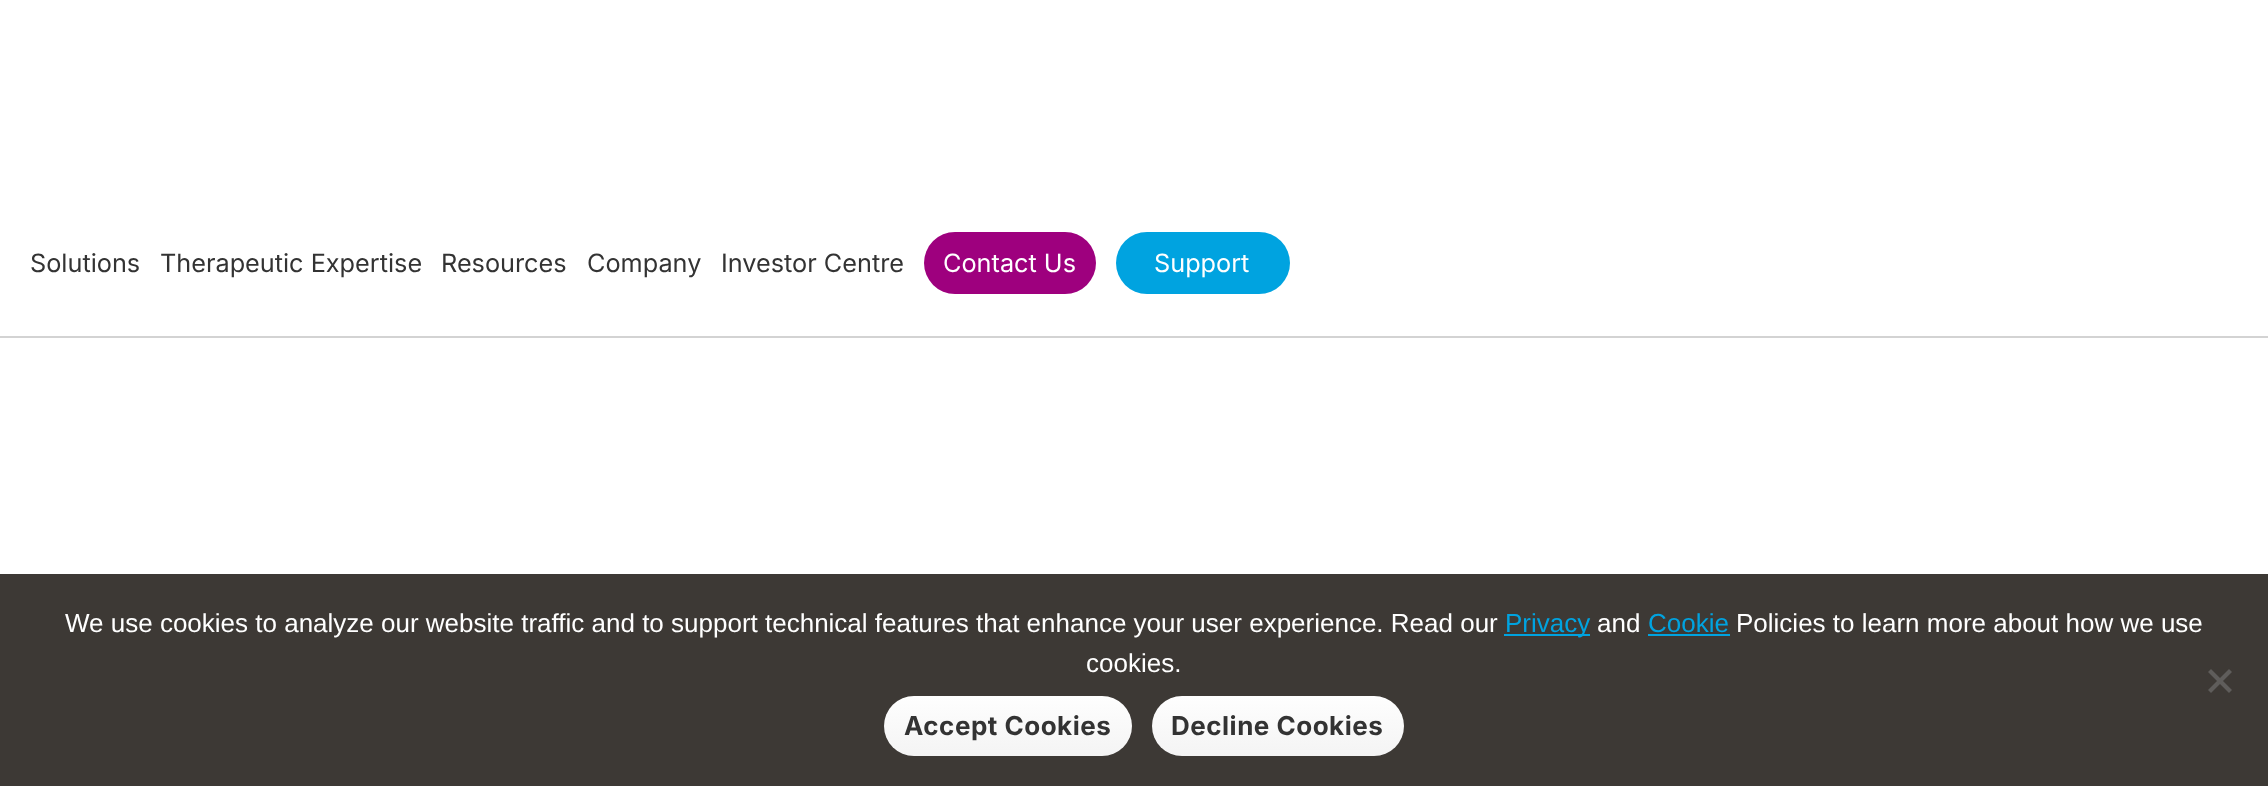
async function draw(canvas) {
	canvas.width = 2268;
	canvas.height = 786;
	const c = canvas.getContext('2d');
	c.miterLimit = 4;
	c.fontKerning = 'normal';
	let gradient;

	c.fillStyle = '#fff';
	c.fillRect(0, 0, 2268, 786);
	c.fillStyle = '#d3d3d3';
	c.fillRect(0, 336, 2268, 2);
	c.font = '25.25px Inter';
	c.fillStyle = '#333';
	for (const [text, x, y] of [
		['Solutions', 30, 272],
		['Therapeutic Expertise', 160, 272],
		['Resources', 441, 272],
		['Company', 587, 272],
		['Investor Centre', 721, 272],
	]) {
		c.fillText(text, x, y);
	}
	c.fillStyle = '#9e007e';
	c.beginPath();
	c.roundRect(924, 232, 172, 62, 31);
	c.fill();
	c.fillStyle = '#fff';
	c.fillText('Contact Us', 943, 272);
	c.fillStyle = '#00a3e0';
	c.beginPath();
	c.roundRect(1116, 232, 174, 62, 31);
	c.fill();
	c.fillStyle = '#fff';
	c.fillText('Support', 1154, 272);
	c.fillStyle = '#3d3935';
	c.fillRect(0, 574, 2268, 212);
	c.font = '26px Liberation Sans';
	c.fillStyle = '#fff';
	c.fillText('We use cookies to analyze our website traffic and to support technical features that enhance your user experience. Read our', 65, 632);
	c.fillStyle = '#00a3e0';
	c.fillRect(1504, 634, 86, 2);
	c.fillText('Privacy', 1505, 632);
	c.fillStyle = '#fff';
	c.fillText('and', 1597, 632);
	c.fillStyle = '#00a3e0';
	c.fillText('Cookie', 1648, 632);
	c.fillRect(1648, 634, 82, 2);
	c.fillStyle = '#fff';
	c.fillText('Policies to learn more about how we use', 1736, 632);
	c.fillText('cookies.', 1086, 672);
	c.fillStyle = '#5f5d5b';
	c.beginPath();
	c.moveTo(2229, 669);
	c.lineTo(2232, 672);
	c.lineTo(2211, 693);
	c.lineTo(2208, 690);
	c.closePath();
	c.fill();
	c.beginPath();
	c.moveTo(2208, 672);
	c.lineTo(2211, 669);
	c.lineTo(2232, 690);
	c.lineTo(2229, 693);
	c.closePath();
	c.fill();
	gradient = c.createLinearGradient(1008, 696, 1008, 756);
	gradient.addColorStop(0, '#fefefe');
	gradient.addColorStop(1, '#f4f4f4');
	c.fillStyle = gradient;
	c.beginPath();
	c.roundRect(884, 696, 248, 60, 30);
	c.fill();
	c.letterSpacing = '0.5px';
	c.font = 'bold 26px Inter';
	c.fillStyle = '#333';
	c.fillText('Accept Cookies', 904, 735);
	gradient = c.createLinearGradient(1278, 696, 1278, 756);
	gradient.addColorStop(0, '#fefefe');
	gradient.addColorStop(1, '#f4f4f4');
	c.fillStyle = gradient;
	c.beginPath();
	c.roundRect(1152, 696, 252, 60, 30);
	c.fill();
	c.fillStyle = '#333';
	c.fillText('Decline Cookies', 1171, 735);
}

draw(document.querySelector('canvas'));
